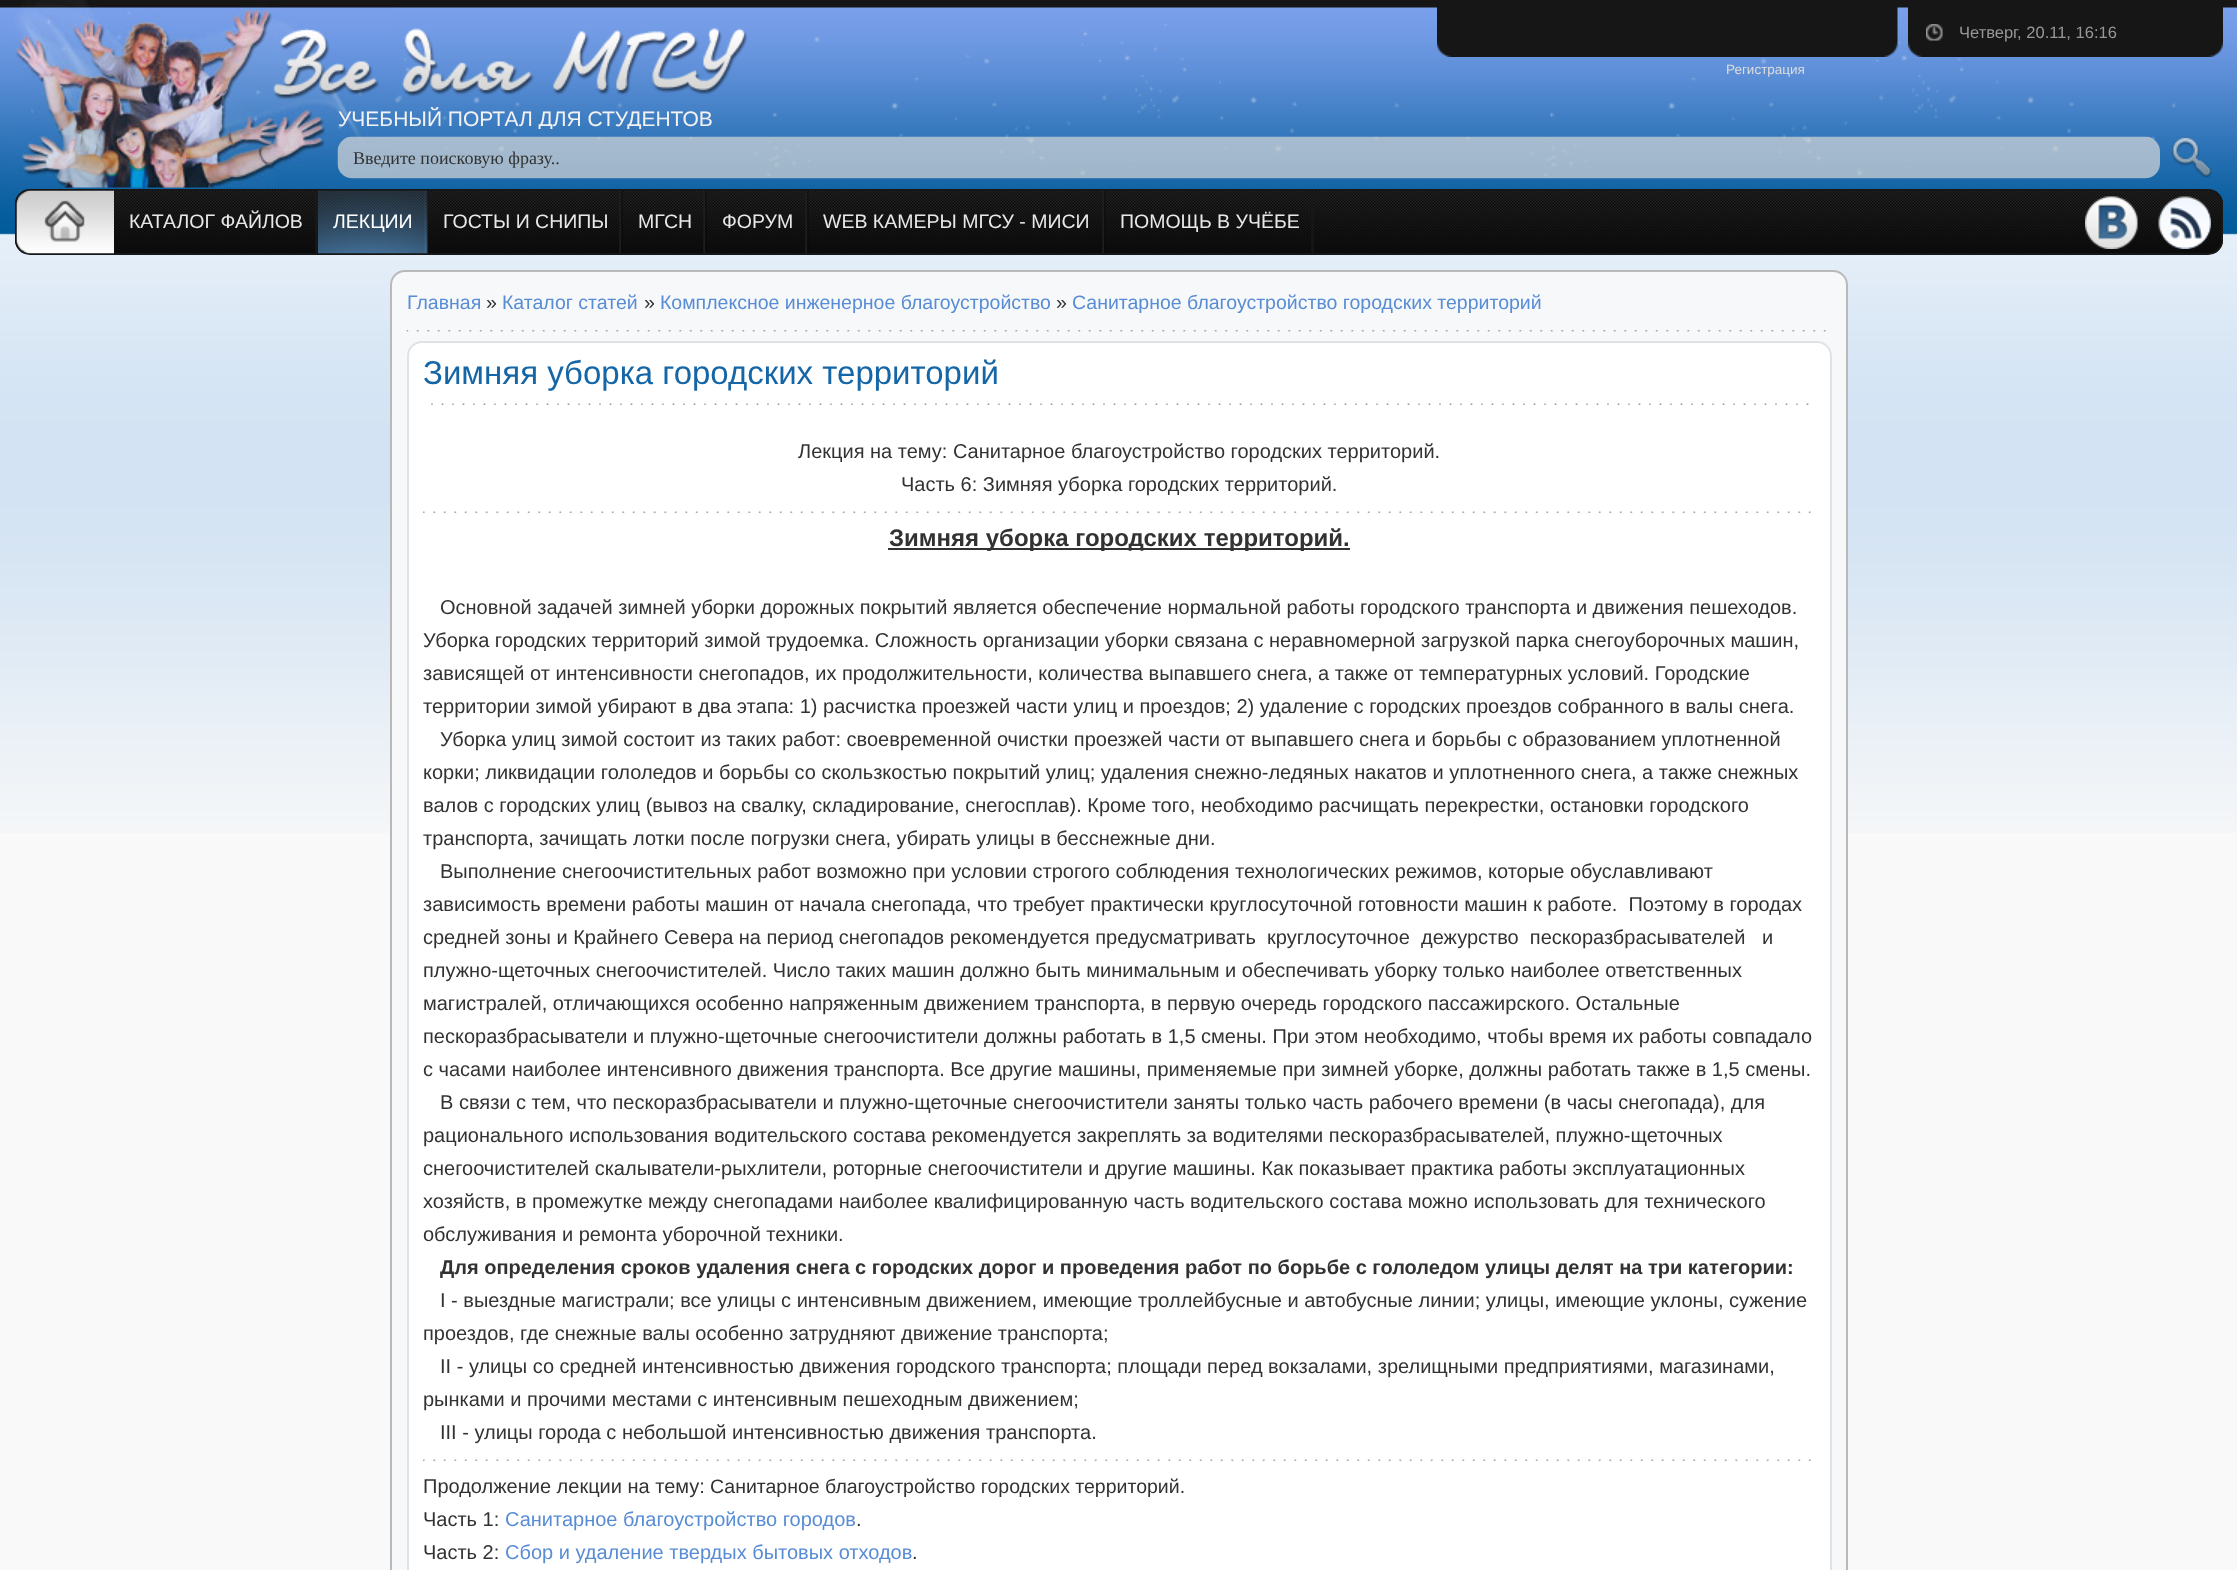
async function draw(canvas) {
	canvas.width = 2237;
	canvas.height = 1570;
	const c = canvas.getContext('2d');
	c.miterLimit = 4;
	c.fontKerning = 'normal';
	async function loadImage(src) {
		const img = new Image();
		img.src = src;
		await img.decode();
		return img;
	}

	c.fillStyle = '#f9f9f9';
	c.fillRect(0, 0, 2237, 1570);
	c.drawImage(await loadImage('img1.png'), 0, 0, 2237, 833);
	c.drawImage(await loadImage('img2.png'), 394, 24, 1783, 153);
	c.drawImage(await loadImage('img3.png'), 15, 0, 380, 188);
	c.drawImage(await loadImage('img4.png'), 1437, 7, 461, 50);
	c.drawImage(await loadImage('img5.png'), 1908, 7, 315, 50);
	c.drawImage(await loadImage('img6.png'), 1926, 24, 17, 17);
	c.font = '16.5px Liberation Sans';
	c.fillStyle = '#979797';
	c.fillText('Четверг, 20.11, 16:16', 1959, 38);
	c.font = '13.5px Liberation Sans';
	c.fillStyle = '#ddd';
	c.fillText('Регистрация', 1726, 74);
	c.drawImage(await loadImage('img7.png'), 273, 28, 475, 72);
	c.save();
	c.beginPath();
	c.rect(270, 0, 1953, 129);
	c.clip();
	c.font = '21px Liberation Sans';
	c.fillStyle = '#f2f2f2';
	c.fillText('УЧЕБНЫЙ ПОРТАЛ ДЛЯ СТУДЕНТОВ', 338, 126);
	c.restore();
	c.drawImage(await loadImage('img8.png'), 337, 136, 1823, 43);
	c.font = '18px Liberation Serif';
	c.fillStyle = '#323232';
	c.fillText('Введите поисковую фразу..', 353, 164);
	c.drawImage(await loadImage('img9.png'), 2171, 136, 41, 42);
	c.drawImage(await loadImage('img10.png'), 15, 190, 2208, 64);
	c.beginPath();
	c.roundRect(16, 190, 2206, 64, 14);
	c.strokeStyle = '#171717';
	c.lineWidth = 2;
	c.stroke();
	c.drawImage(await loadImage('img11.png'), 16, 190, 98, 64);
	c.fillStyle = '#1a1a1abd';
	c.fillRect(315, 191, 3, 62);
	c.font = '19.5px Liberation Sans';
	c.fillStyle = '#e8e8e8';
	c.fillText('КАТАЛОГ ФАЙЛОВ', 129, 228);
	c.drawImage(await loadImage('img12.png'), 424, 191, 4, 62);
	c.drawImage(await loadImage('img13.png'), 318, 190, 110, 64);
	c.fillStyle = '#fff';
	c.fillText('ЛЕКЦИИ', 333, 228);
	c.drawImage(await loadImage('img14.png'), 619, 191, 4, 62);
	c.fillStyle = '#e8e8e8';
	c.fillText('ГОСТЫ И СНИПЫ', 443, 228);
	c.drawImage(await loadImage('img14.png'), 703, 191, 4, 62);
	c.fillText('МГСН', 638, 228);
	c.drawImage(await loadImage('img15.png'), 805, 191, 4, 62);
	c.fillText('ФОРУМ', 722, 228);
	c.drawImage(await loadImage('img14.png'), 1102, 191, 4, 62);
	c.fillText('WEB КАМЕРЫ МГСУ - МИСИ', 823, 228);
	c.fillStyle = '#181818b3';
	c.fillRect(1311, 191, 3, 62);
	c.fillStyle = '#e8e8e8';
	c.fillText('ПОМОЩЬ В УЧЁБЕ', 1120, 228);
	c.drawImage(await loadImage('img16.png'), 2085, 196, 53, 53);
	c.drawImage(await loadImage('img17.png'), 2158, 196, 53, 53);
	c.fillStyle = '#f6f8fa';
	c.beginPath();
	c.roundRect(391, 271, 1456, 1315, 14);
	c.fill();
	c.strokeStyle = '#b9b9b9';
	c.stroke();
	c.fillStyle = '#588cd4';
	c.fillText('Главная', 407, 309);
	c.fillStyle = '#323232';
	c.fillText('»', 486, 309);
	c.fillStyle = '#588cd4';
	c.fillText('Каталог статей', 502, 309);
	c.fillStyle = '#323232';
	c.fillText('»', 644, 309);
	c.fillStyle = '#588cd4';
	c.fillText('Комплексное инженерное благоустройство', 660, 309);
	c.fillStyle = '#323232';
	c.fillText('»', 1056, 309);
	c.fillStyle = '#588cd4';
	c.fillText('Санитарное благоустройство городских территорий', 1072, 309);
	c.drawImage(await loadImage('img18.png'), 406, 330, 1420, 2);
	c.fillStyle = '#fff';
	c.beginPath();
	c.roundRect(408, 342, 1423, 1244, 14);
	c.fill();
	c.strokeStyle = '#e2e2e2';
	c.stroke();
	c.drawImage(await loadImage('img19.png'), 431, 403, 1378, 2);
	c.font = '33px Liberation Sans';
	c.fillStyle = '#1566a7';
	c.fillText('Зимняя уборка городских территорий', 423, 384);
	c.font = '20px Liberation Sans';
	c.fillStyle = '#323232';
	c.fillText('Лекция на тему: Санитарное благоустройство городских территорий.', 798, 458);
	c.fillText('Часть 6: Зимняя уборка городских территорий.', 901, 491);
	c.drawImage(await loadImage('img20.png'), 423, 511, 1388, 2);
	c.fillRect(888, 548, 462, 2);
	c.font = 'bold 24px Liberation Sans';
	c.fillText('Зимняя уборка городских территорий.', 889, 546);
	c.font = '20px Liberation Sans';
	for (const [text, x, y] of [
		['Основной задачей зимней уборки дорожных покрытий является обеспечение нормальной работы городского транспорта и движения пешеходов.', 440, 614],
		['Уборка городских территорий зимой трудоемка. Сложность организации уборки связана с неравномерной загрузкой парка снегоуборочных машин,', 423, 647],
		['зависящей от интенсивности снегопадов, их продолжительности, количества выпавшего снега, а также от температурных условий. Городские', 423, 680],
		['территории зимой убирают в два этапа: 1) расчистка проезжей части улиц и проездов; 2) удаление с городских проездов собранного в валы снега.', 423, 713],
		['Уборка улиц зимой состоит из таких работ: своевременной очистки проезжей части от выпавшего снега и борьбы с образованием уплотненной', 440, 746],
		['корки; ликвидации гололедов и борьбы со скользкостью покрытий улиц; удаления снежно-ледяных накатов и уплотненного снега, а также снежных', 423, 779],
		['валов с городских улиц (вывоз на свалку, складирование, снегосплав). Кроме того, необходимо расчищать перекрестки, остановки городского', 423, 812],
		['транспорта, зачищать лотки после погрузки снега, убирать улицы в бесснежные дни.', 423, 845],
		['Выполнение снегоочистительных работ возможно при условии строгого соблюдения технологических режимов, которые обуславливают', 440, 878],
		['зависимость времени работы машин от начала снегопада, что требует практически круглосуточной готовности машин к работе.  Поэтому в городах', 423, 911],
		['средней зоны и Крайнего Севера на период снегопадов рекомендуется предусматривать  круглосуточное  дежурство  пескоразбрасывателей   и', 423, 944],
		['плужно-щеточных снегоочистителей. Число таких машин должно быть минимальным и обеспечивать уборку только наиболее ответственных', 423, 977],
		['магистралей, отличающихся особенно напряженным движением транспорта, в первую очередь городского пассажирского. Остальные', 423, 1010],
		['пескоразбрасыватели и плужно-щеточные снегоочистители должны работать в 1,5 смены. При этом необходимо, чтобы время их работы совпадало', 423, 1043],
		['с часами наиболее интенсивного движения транспорта. Все другие машины, применяемые при зимней уборке, должны работать также в 1,5 смены.', 423, 1076],
		['В связи с тем, что пескоразбрасыватели и плужно-щеточные снегоочистители заняты только часть рабочего времени (в часы снегопада), для', 440, 1109],
		['рационального использования водительского состава рекомендуется закреплять за водителями пескоразбрасывателей, плужно-щеточных', 423, 1142],
		['снегоочистителей скалыватели-рыхлители, роторные снегоочистители и другие машины. Как показывает практика работы эксплуатационных', 423, 1175],
		['хозяйств, в промежутке между снегопадами наиболее квалифицированную часть водительского состава можно использовать для технического', 423, 1208],
		['обслуживания и ремонта уборочной техники.', 423, 1241],
	]) {
		c.fillText(text, x, y);
	}
	c.font = 'bold 20px Liberation Sans';
	c.fillText('Для определения сроков удаления снега с городских дорог и проведения работ по борьбе с гололедом улицы делят на три категории:', 440, 1274);
	c.font = '20px Liberation Sans';
	for (const [text, x, y] of [
		['I - выездные магистрали; все улицы с интенсивным движением, имеющие троллейбусные и автобусные линии; улицы, имеющие уклоны, сужение', 440, 1307],
		['проездов, где снежные валы особенно затрудняют движение транспорта;', 423, 1340],
		['II - улицы со средней интенсивностью движения городского транспорта; площади перед вокзалами, зрелищными предприятиями, магазинами,', 440, 1373],
		['рынками и прочими местами с интенсивным пешеходным движением;', 423, 1406],
		['III - улицы города с небольшой интенсивностью движения транспорта.', 440, 1439],
	]) {
		c.fillText(text, x, y);
	}
	c.drawImage(await loadImage('img20.png'), 423, 1459, 1388, 2);
	c.fillText('Продолжение лекции на тему:', 423, 1493);
	c.font = '19.5px Liberation Sans';
	c.fillText('Санитарное благоустройство городских территорий.', 710, 1493);
	c.font = '20px Liberation Sans';
	c.fillText('Часть 1:', 423, 1526);
	c.fillStyle = '#588cd4';
	c.fillText('Санитарное благоустройство городов', 505, 1526);
	c.fillStyle = '#323232';
	c.fillText('.', 856, 1526);
	c.fillText('Часть 2:', 423, 1559);
	c.fillStyle = '#588cd4';
	c.fillText('Сбор и удаление твердых бытовых отходов', 505, 1559);
	c.fillStyle = '#323232';
	c.fillText('.', 912, 1559);
}

draw(document.querySelector('canvas'));
